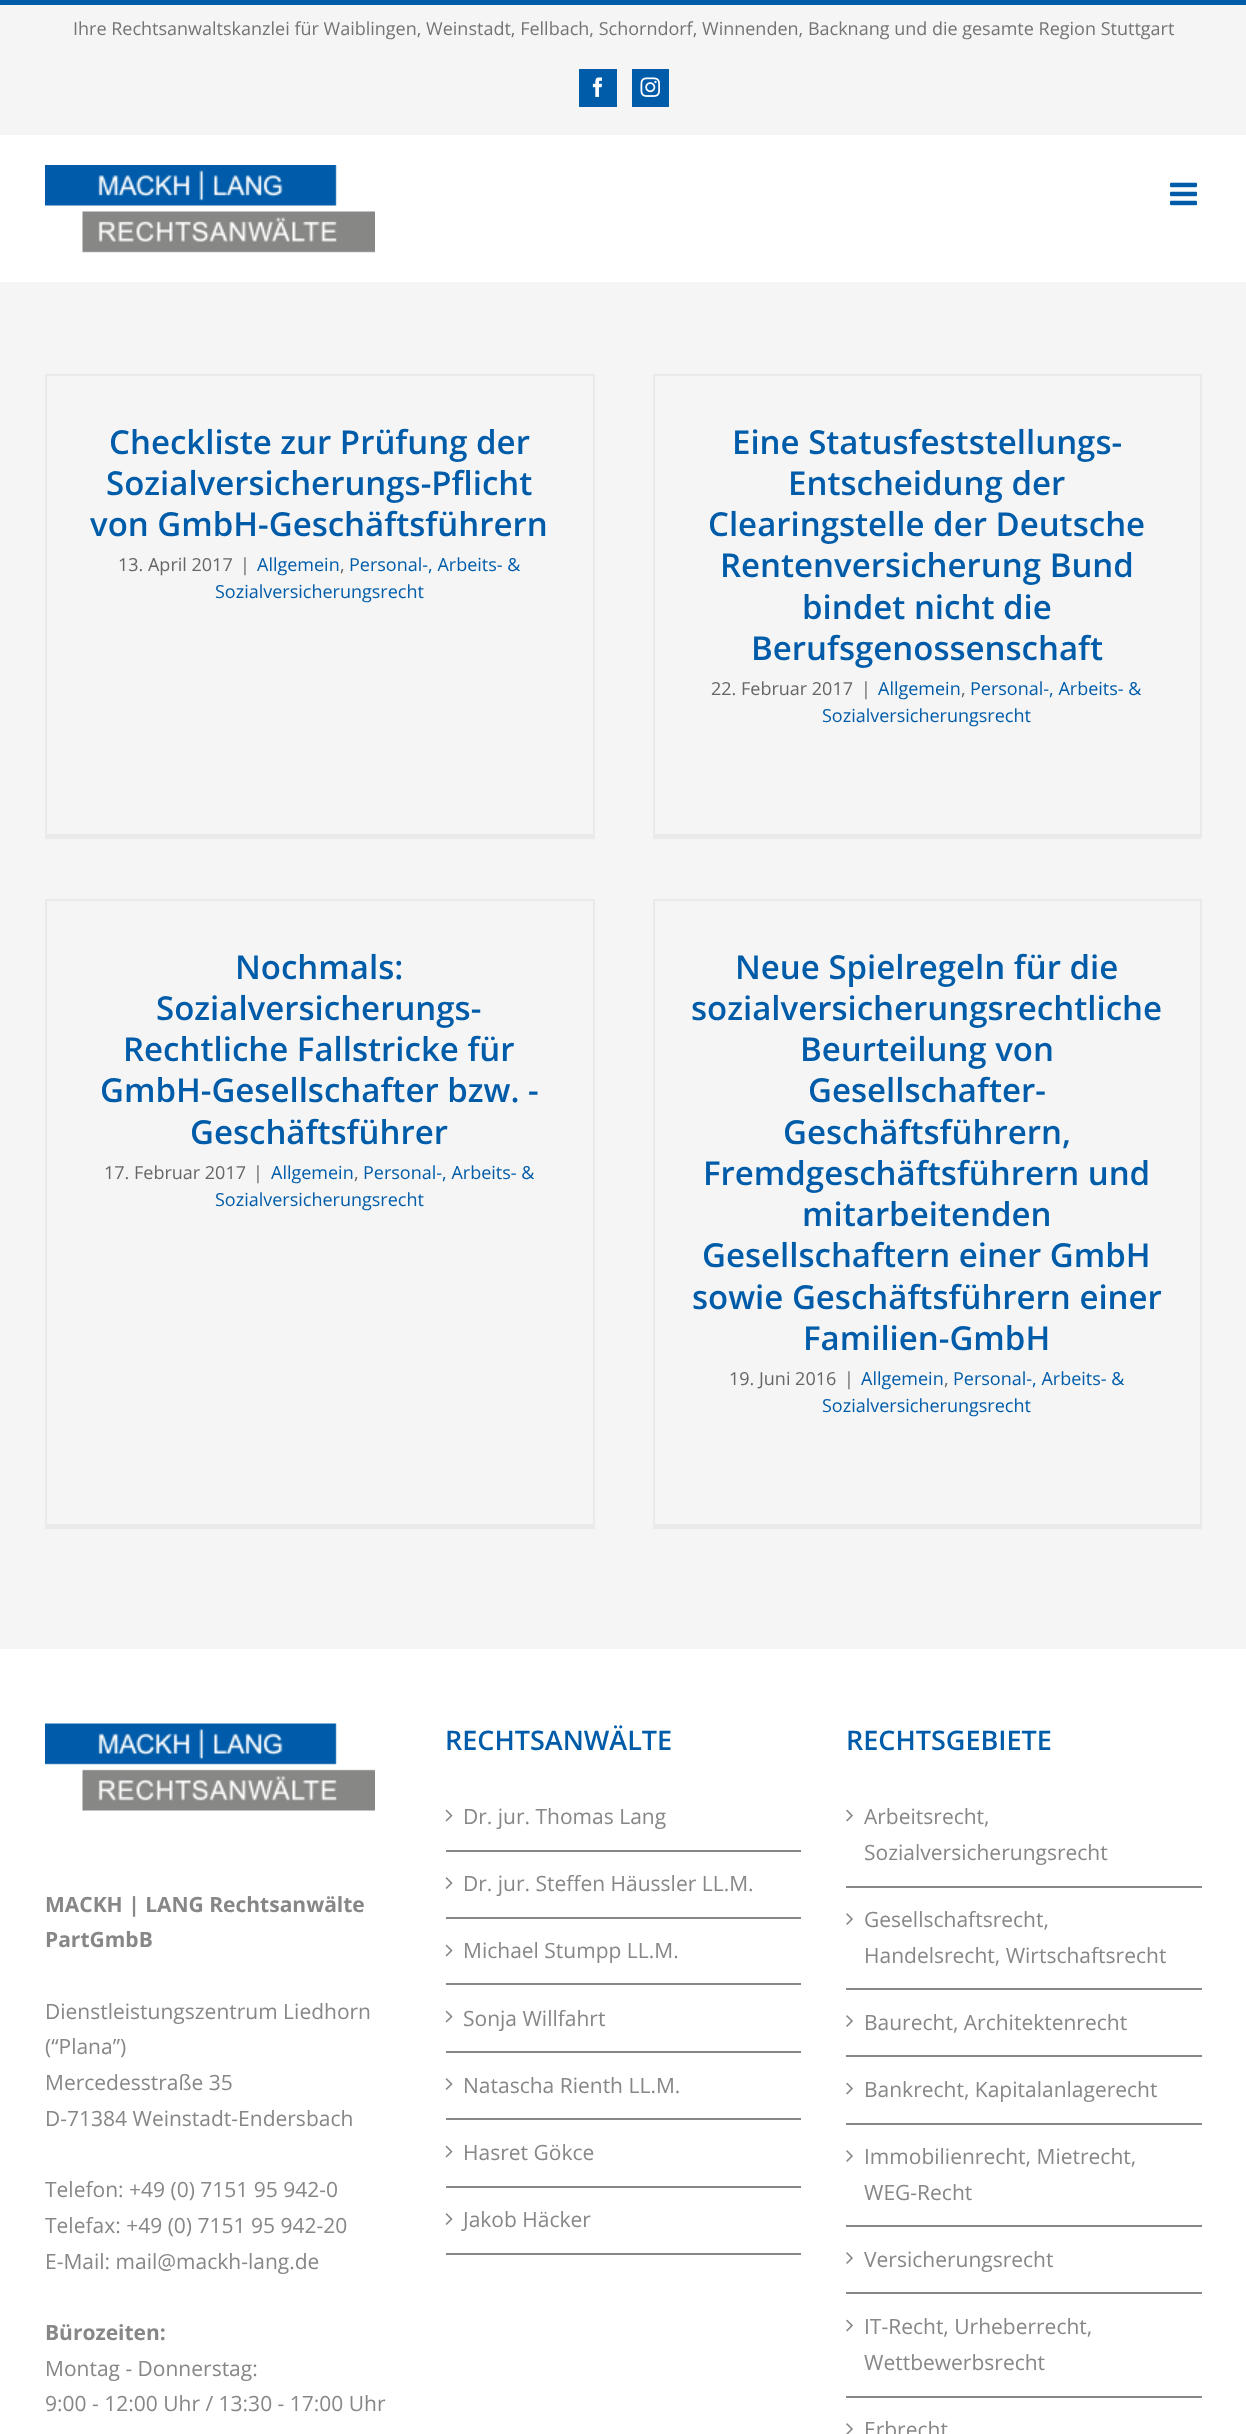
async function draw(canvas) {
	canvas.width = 1246;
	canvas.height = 2434;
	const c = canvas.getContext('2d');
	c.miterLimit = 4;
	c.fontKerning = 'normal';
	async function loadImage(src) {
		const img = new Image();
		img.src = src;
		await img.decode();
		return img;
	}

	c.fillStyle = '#f5f5f5';
	c.fillRect(0, 0, 1246, 2434);
	c.fillStyle = '#005ca9';
	c.fillRect(0, 0, 1246, 5);
	c.font = '18px Open Sans';
	c.fillStyle = '#747474';
	c.fillText('Ihre Rechtsanwaltskanzlei für Waiblingen, Weinstadt, Fellbach, Schorndorf, Winnenden, Backnang und die gesamte Region Stuttgart', 73, 35);
	c.fillStyle = '#005ca9';
	c.fillRect(579, 69, 38, 38);
	c.drawImage(await loadImage('img1.png'), 592, 77, 10, 20);
	c.fillRect(632, 69, 37, 38);
	c.drawImage(await loadImage('img2.png'), 640, 77, 20, 20);
	c.fillStyle = '#fff';
	c.fillRect(0, 135, 1246, 147);
	c.drawImage(await loadImage('img3.png'), 45, 165, 330, 88);
	c.drawImage(await loadImage('img4.png'), 1170, 182, 27, 24);
	for (const [x, y, w, h, color] of [
		[45, 374, 549, 2, '#ebeaea'],
		[593, 374, 2, 465, '#ebeaea'],
		[45, 834, 549, 5, '#ebeaea'],
		[45, 374, 2, 465, '#ebeaea'],
	]) {
		c.fillStyle = color;
		c.fillRect(x, y, w, h);
	}
	c.font = '600 33px Open Sans';
	c.fillStyle = '#005ca9';
	for (const [text, x, y] of [
		['Checkliste zur Prüfung der', 109, 454],
		['Sozialversicherungs-Pflicht', 106, 495],
		['von GmbH-Geschäftsführern', 90, 536],
	]) {
		c.fillText(text, x, y);
	}
	c.font = '18px Open Sans';
	c.fillStyle = '#666';
	c.fillText('13. April 2017', 118, 571);
	c.fillText('|', 240, 571);
	c.fillStyle = '#005ca9';
	c.fillText('Allgemein', 257, 571);
	c.fillStyle = '#666';
	c.fillText(',', 340, 571);
	c.fillStyle = '#005ca9';
	c.fillText('Personal-, Arbeits- &', 349, 571);
	c.fillText('Sozialversicherungsrecht', 215, 598);
	for (const [x, y, w, h, color] of [
		[653, 374, 549, 2, '#ebeaea'],
		[1200, 374, 2, 465, '#ebeaea'],
		[653, 834, 549, 5, '#ebeaea'],
		[653, 374, 2, 465, '#ebeaea'],
	]) {
		c.fillStyle = color;
		c.fillRect(x, y, w, h);
	}
	c.font = '600 33px Open Sans';
	c.fillStyle = '#005ca9';
	for (const [text, x, y] of [
		['Eine Statusfeststellungs-', 732, 454],
		['Entscheidung der', 788, 495],
		['Clearingstelle der Deutsche', 708, 536],
		['Rentenversicherung Bund', 720, 577],
		['bindet nicht die', 802, 619],
		['Berufsgenossenschaft', 751, 660],
	]) {
		c.fillText(text, x, y);
	}
	c.font = '18px Open Sans';
	c.fillStyle = '#666';
	c.fillText('22. Februar 2017', 711, 695);
	c.fillText('|', 861, 695);
	c.fillStyle = '#005ca9';
	c.fillText('Allgemein', 878, 695);
	c.fillStyle = '#666';
	c.fillText(',', 961, 695);
	c.fillStyle = '#005ca9';
	c.fillText('Personal-, Arbeits- &', 970, 695);
	c.fillText('Sozialversicherungsrecht', 822, 722);
	for (const [x, y, w, h, color] of [
		[45, 899, 549, 2, '#ebeaea'],
		[593, 899, 2, 630, '#ebeaea'],
		[45, 1524, 549, 5, '#ebeaea'],
		[45, 899, 2, 630, '#ebeaea'],
	]) {
		c.fillStyle = color;
		c.fillRect(x, y, w, h);
	}
	c.font = '600 33px Open Sans';
	c.fillStyle = '#005ca9';
	for (const [text, x, y] of [
		['Nochmals:', 235, 979],
		['Sozialversicherungs-', 156, 1020],
		['Rechtliche Fallstricke für', 123, 1061],
		['GmbH-Gesellschafter bzw. -', 100, 1102],
		['Geschäftsführer', 190, 1144],
	]) {
		c.fillText(text, x, y);
	}
	c.font = '18px Open Sans';
	c.fillStyle = '#666';
	c.fillText('17. Februar 2017', 104, 1179);
	c.fillText('|', 253, 1179);
	c.fillStyle = '#005ca9';
	c.fillText('Allgemein', 271, 1179);
	c.fillStyle = '#666';
	c.fillText(',', 354, 1179);
	c.fillStyle = '#005ca9';
	c.fillText('Personal-, Arbeits- &', 363, 1179);
	c.fillText('Sozialversicherungsrecht', 215, 1206);
	for (const [x, y, w, h, color] of [
		[653, 899, 549, 2, '#ebeaea'],
		[1200, 899, 2, 630, '#ebeaea'],
		[653, 1524, 549, 5, '#ebeaea'],
		[653, 899, 2, 630, '#ebeaea'],
	]) {
		c.fillStyle = color;
		c.fillRect(x, y, w, h);
	}
	c.font = '600 33px Open Sans';
	c.fillStyle = '#005ca9';
	for (const [text, x, y] of [
		['Neue Spielregeln für die', 735, 979],
		['sozialversicherungsrechtliche', 691, 1020],
		['Beurteilung von', 800, 1061],
		['Gesellschafter-', 808, 1102],
		['Geschäftsführern,', 783, 1144],
		['Fremdgeschäftsführern und', 703, 1185],
		['mitarbeitenden', 802, 1226],
		['Gesellschaftern einer GmbH', 702, 1267],
		['sowie Geschäftsführern einer', 692, 1309],
		['Familien-GmbH', 803, 1350],
	]) {
		c.fillText(text, x, y);
	}
	c.font = '18px Open Sans';
	c.fillStyle = '#666';
	c.fillText('19. Juni 2016', 729, 1385);
	c.fillText('|', 844, 1385);
	c.fillStyle = '#005ca9';
	c.fillText('Allgemein', 861, 1385);
	c.fillStyle = '#666';
	c.fillText(',', 944, 1385);
	c.fillStyle = '#005ca9';
	c.fillText('Personal-, Arbeits- &', 953, 1385);
	c.fillText('Sozialversicherungsrecht', 822, 1412);
	c.fillStyle = '#fff';
	c.fillRect(0, 1649, 1246, 785);
	c.drawImage(await loadImage('img5.png'), 45, 1723, 330, 88);
	c.font = 'bold 21px Open Sans';
	c.fillStyle = '#878787';
	c.fillText('MACKH | LANG Rechtsanwälte', 45, 1912);
	c.fillText('PartGmbB', 45, 1947);
	c.font = '21px Open Sans';
	for (const [text, x, y] of [
		['Dienstleistungszentrum Liedhorn', 45, 2019],
		['(“Plana”)', 45, 2054],
		['Mercedesstraße 35', 45, 2090],
		['D-71384 Weinstadt-Endersbach', 45, 2126],
		['Telefon: +49 (0) 7151 95 942-0', 45, 2197],
		['Telefax: +49 (0) 7151 95 942-20', 45, 2233],
		['E-Mail: mail@mackh-lang.de', 45, 2269],
	]) {
		c.fillText(text, x, y);
	}
	c.font = 'bold 21px Open Sans';
	c.fillText('Bürozeiten:', 45, 2340);
	c.font = '21px Open Sans';
	c.fillText('Montag - Donnerstag:', 45, 2376);
	c.fillText('9:00 - 12:00 Uhr / 13:30 - 17:00 Uhr', 45, 2411);
	c.font = '600 27px Open Sans';
	c.fillStyle = '#005ca9';
	c.fillText('RECHTSANWÄLTE', 445, 1750);
	c.fillStyle = '#878787';
	c.fillRect(446, 1850, 355, 2);
	c.drawImage(await loadImage('img6.png'), 445, 1809, 8, 13);
	c.font = '21px Open Sans';
	c.fillText('Dr. jur. Thomas Lang', 463, 1824);
	c.fillRect(446, 1917, 355, 2);
	c.drawImage(await loadImage('img7.png'), 445, 1877, 8, 12);
	c.fillText('Dr. jur. Steffen Häussler LL.M.', 463, 1891);
	c.fillRect(446, 1983, 355, 2);
	c.drawImage(await loadImage('img6.png'), 445, 1944, 8, 13);
	c.fillText('Michael Stumpp LL.M.', 463, 1958);
	c.fillRect(446, 2051, 355, 2);
	c.drawImage(await loadImage('img6.png'), 445, 2010, 8, 13);
	c.fillText('Sonja Willfahrt', 463, 2026);
	c.fillRect(446, 2118, 355, 2);
	c.drawImage(await loadImage('img7.png'), 445, 2078, 8, 12);
	c.fillText('Natascha Rienth LL.M.', 463, 2093);
	c.fillRect(446, 2186, 355, 2);
	c.drawImage(await loadImage('img6.png'), 445, 2145, 8, 13);
	c.fillText('Hasret Gökce', 463, 2160);
	c.fillRect(446, 2253, 355, 2);
	c.drawImage(await loadImage('img7.png'), 445, 2213, 8, 12);
	c.fillText('Jakob Häcker', 463, 2227);
	c.font = '600 27px Open Sans';
	c.fillStyle = '#005ca9';
	c.fillText('RECHTSGEBIETE', 846, 1750);
	c.fillStyle = '#878787';
	c.fillRect(846, 1886, 356, 2);
	c.drawImage(await loadImage('img8.png'), 846, 1809, 7, 13);
	c.font = '21px Open Sans';
	c.fillText('Arbeitsrecht,', 864, 1824);
	c.fillText('Sozialversicherungsrecht', 864, 1860);
	c.fillRect(846, 1988, 356, 2);
	c.drawImage(await loadImage('img9.png'), 846, 1913, 7, 12);
	c.fillText('Gesellschaftsrecht,', 864, 1927);
	c.fillText('Handelsrecht, Wirtschaftsrecht', 864, 1963);
	c.fillRect(846, 2055, 356, 2);
	c.drawImage(await loadImage('img9.png'), 846, 2015, 7, 12);
	c.fillText('Baurecht, Architektenrecht', 864, 2030);
	c.fillRect(846, 2123, 356, 2);
	c.drawImage(await loadImage('img8.png'), 846, 2082, 7, 13);
	c.fillText('Bankrecht, Kapitalanlagerecht', 864, 2097);
	c.fillRect(846, 2225, 356, 2);
	c.drawImage(await loadImage('img9.png'), 846, 2150, 7, 12);
	c.fillText('Immobilienrecht, Mietrecht,', 864, 2164);
	c.fillText('WEG-Recht', 864, 2200);
	c.fillRect(846, 2292, 356, 2);
	c.drawImage(await loadImage('img9.png'), 846, 2252, 7, 12);
	c.fillText('Versicherungsrecht', 864, 2267);
	c.fillRect(846, 2396, 356, 2);
	c.drawImage(await loadImage('img8.png'), 846, 2319, 7, 13);
	c.fillText('IT-Recht, Urheberrecht,', 864, 2334);
	c.fillText('Wettbewerbsrecht', 864, 2370);
	c.drawImage(await loadImage('img10.png'), 846, 2423, 7, 11);
	c.fillText('Erbrecht', 864, 2437);
}

draw(document.querySelector('canvas'));
